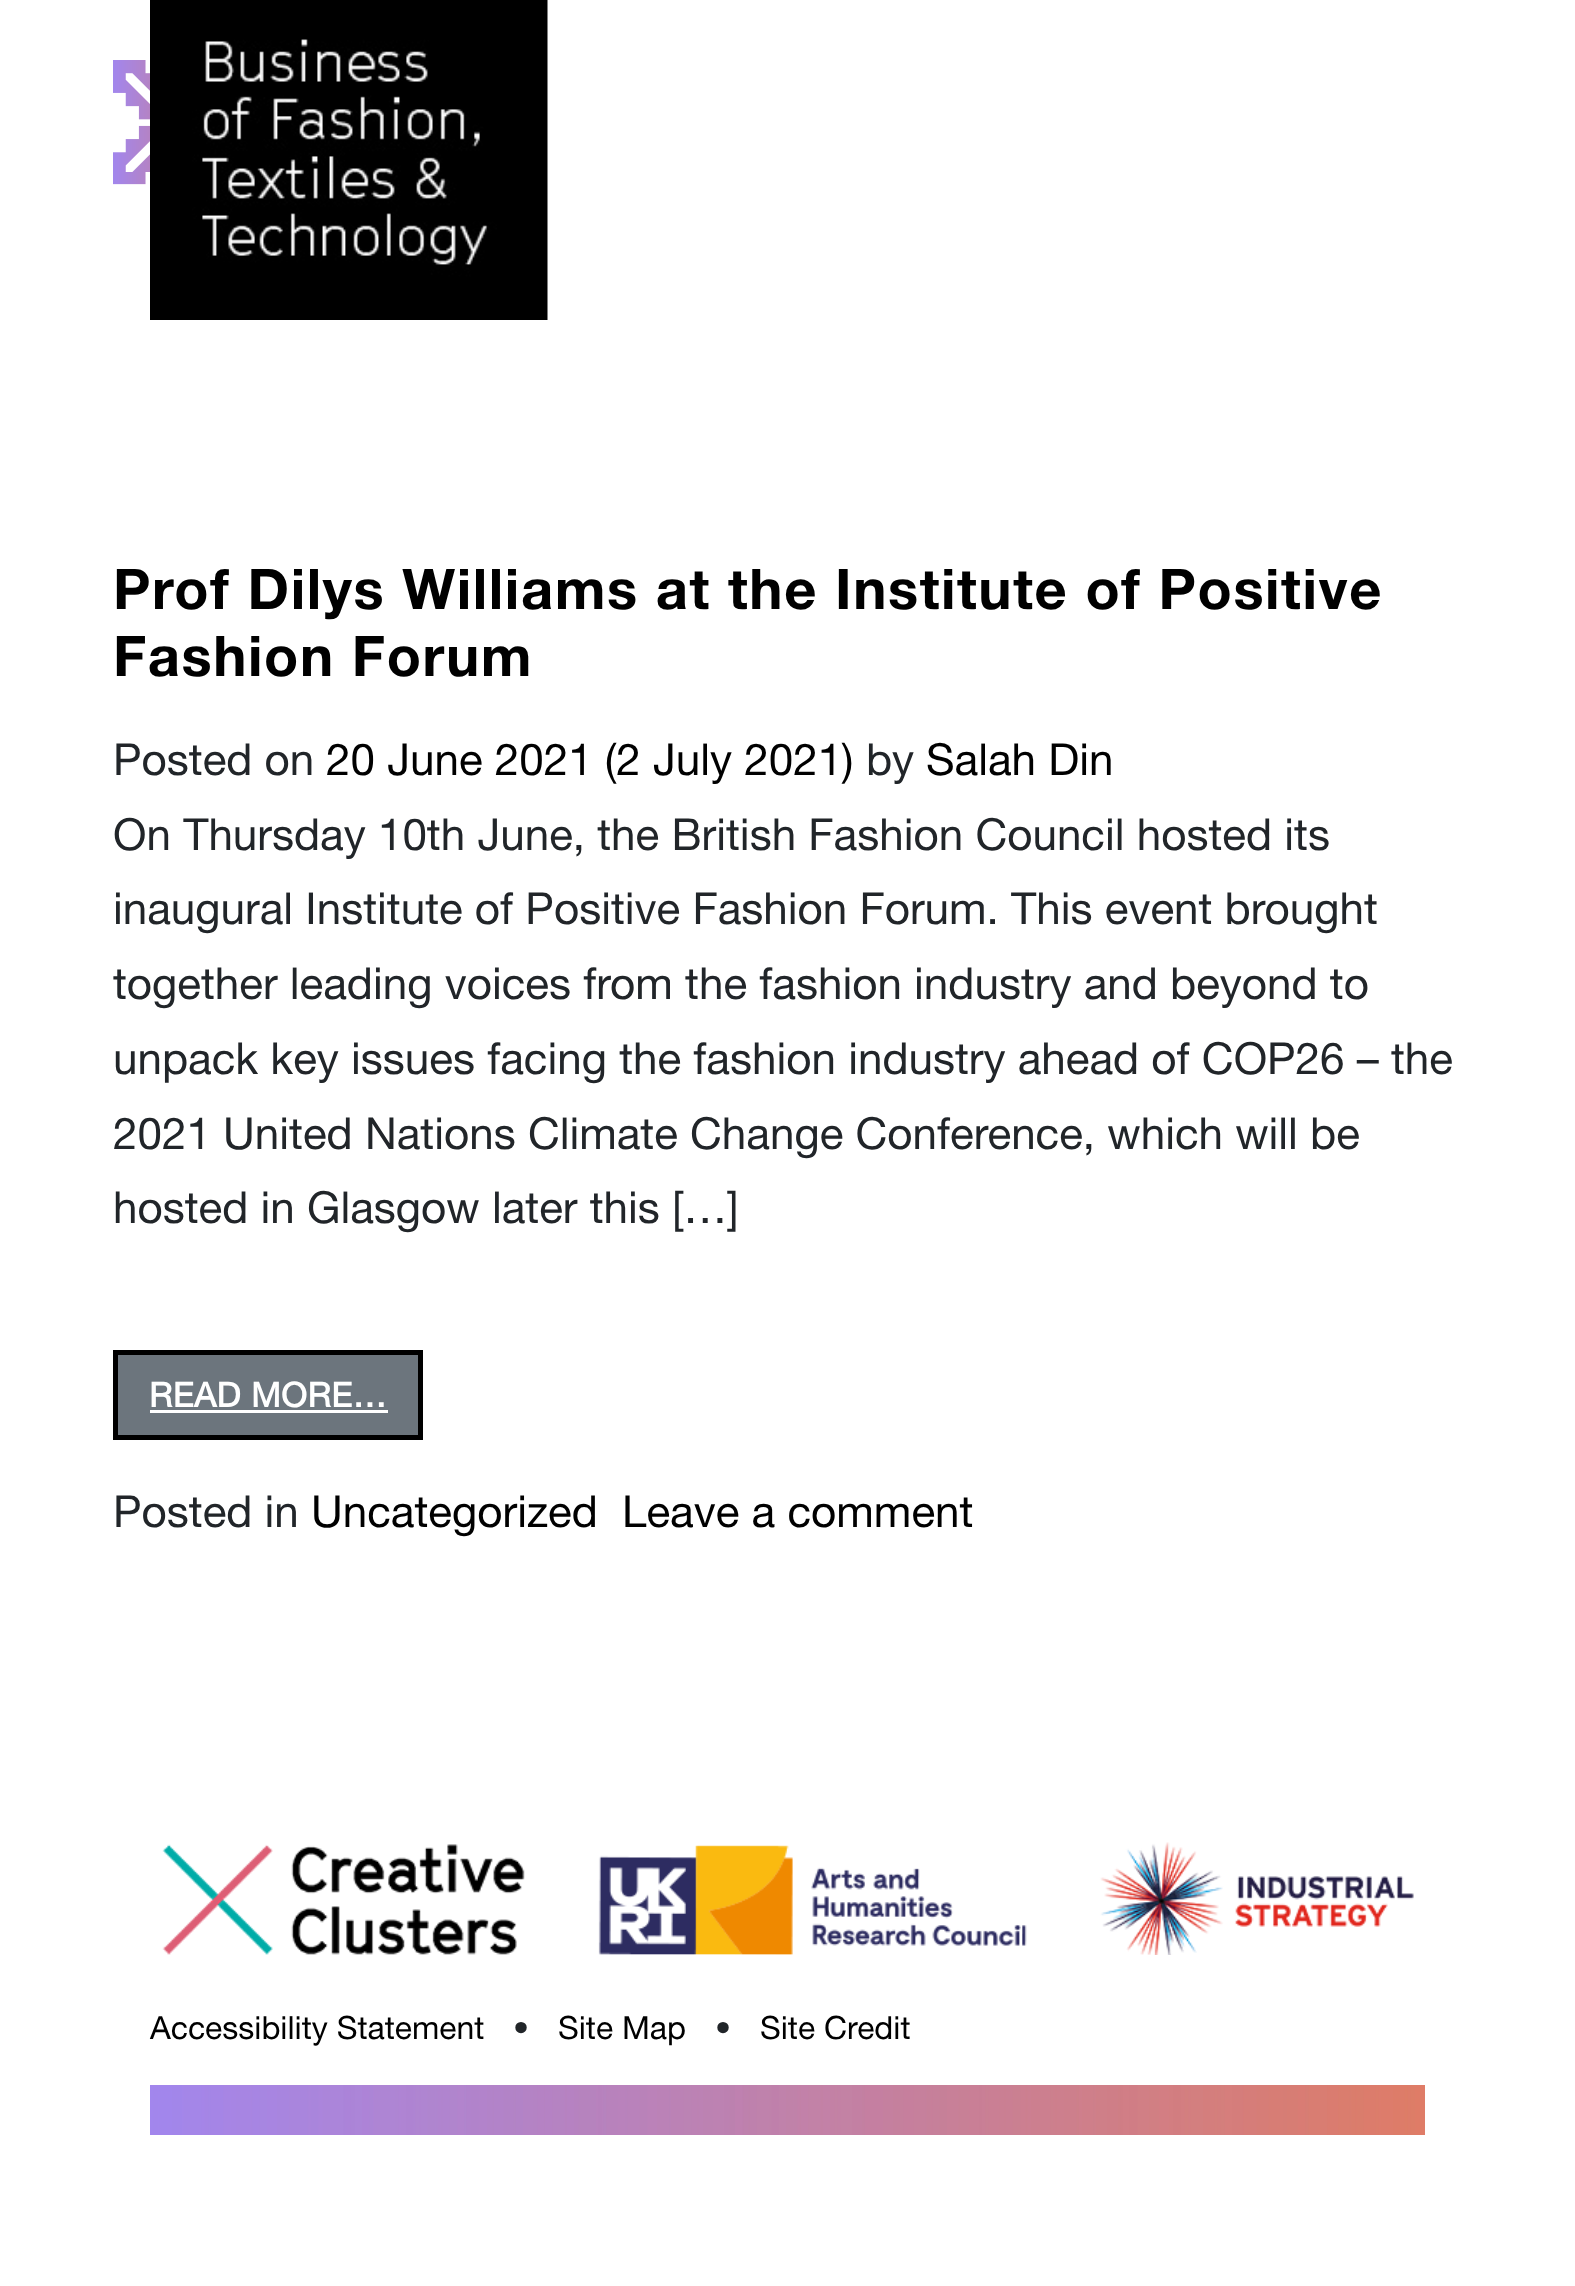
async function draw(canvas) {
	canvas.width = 1575;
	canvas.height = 2286;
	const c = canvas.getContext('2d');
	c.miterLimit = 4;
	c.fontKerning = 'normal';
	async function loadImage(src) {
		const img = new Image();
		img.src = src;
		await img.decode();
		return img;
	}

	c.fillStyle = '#fff';
	c.fillRect(0, 0, 1575, 2286);
	c.drawImage(await loadImage('img1.png'), 113, 60, 37, 125);
	c.drawImage(await loadImage('img2.png'), 150, 0, 398, 320);
	c.letterSpacing = '1.6px';
	c.font = '56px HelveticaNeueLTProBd';
	c.fillStyle = '#000';
	c.fillText('Prof Dilys Williams at the Institute of Positive', 113, 609);
	c.fillText('Fashion Forum', 113, 676);
	c.letterSpacing = '0px';
	c.font = '44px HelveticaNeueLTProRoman';
	c.fillStyle = '#212529';
	c.fillText('Posted on', 113, 775);
	c.fillStyle = '#000';
	c.fillText('20 June 2021 (2 July 2021)', 326, 775);
	c.fillStyle = '#212529';
	c.fillText('by', 866, 775);
	c.fillStyle = '#000';
	c.fillText('Salah Din', 926, 775);
	c.fillStyle = '#212529';
	for (const [text, x, y] of [
		['On Thursday 10th June, the British Fashion Council hosted its', 113, 850],
		['inaugural Institute of Positive Fashion Forum. This event brought', 113, 924],
		['together leading voices from the fashion industry and beyond to', 113, 999],
		['unpack key issues facing the fashion industry ahead of COP26 – the', 113, 1074],
		['2021 United Nations Climate Change Conference, which will be', 113, 1149],
		['hosted in Glasgow later this […]', 113, 1223],
	]) {
		c.fillText(text, x, y);
	}
	c.fillStyle = '#6c757d';
	c.beginPath();
	c.rect(115.5, 1352.5, 305, 85);
	c.fill();
	c.strokeStyle = '#000';
	c.lineWidth = 5;
	c.stroke();
	c.letterSpacing = '0.5px';
	c.font = 'bold 34px HelveticaNeueLTProRoman';
	c.fillStyle = '#fff';
	c.fillText('READ MORE…', 149, 1407);
	c.fillRect(150, 1410, 238, 3);
	c.letterSpacing = '0px';
	c.font = '44px HelveticaNeueLTProRoman';
	c.fillStyle = '#212529';
	c.fillText('Posted in', 113, 1527);
	c.fillStyle = '#000';
	c.fillText('Uncategorized', 311, 1527);
	c.fillText('Leave a comment', 622, 1527);
	c.drawImage(await loadImage('img3.png'), 150, 2085, 1275, 50);
	c.drawImage(await loadImage('img4.png'), 162, 1842, 1252, 113);
	c.font = '32px HelveticaNeueLTProRoman';
	c.fillText('Accessibility Statement', 150, 2039);
	c.fillStyle = '#212529';
	c.fillText('•', 513, 2039);
	c.fillStyle = '#000';
	c.fillText('Site Map', 558, 2039);
	c.fillStyle = '#212529';
	c.fillText('•', 715, 2039);
	c.fillStyle = '#000';
	c.fillText('Site Credit', 760, 2039);
}

draw(document.querySelector('canvas'));
